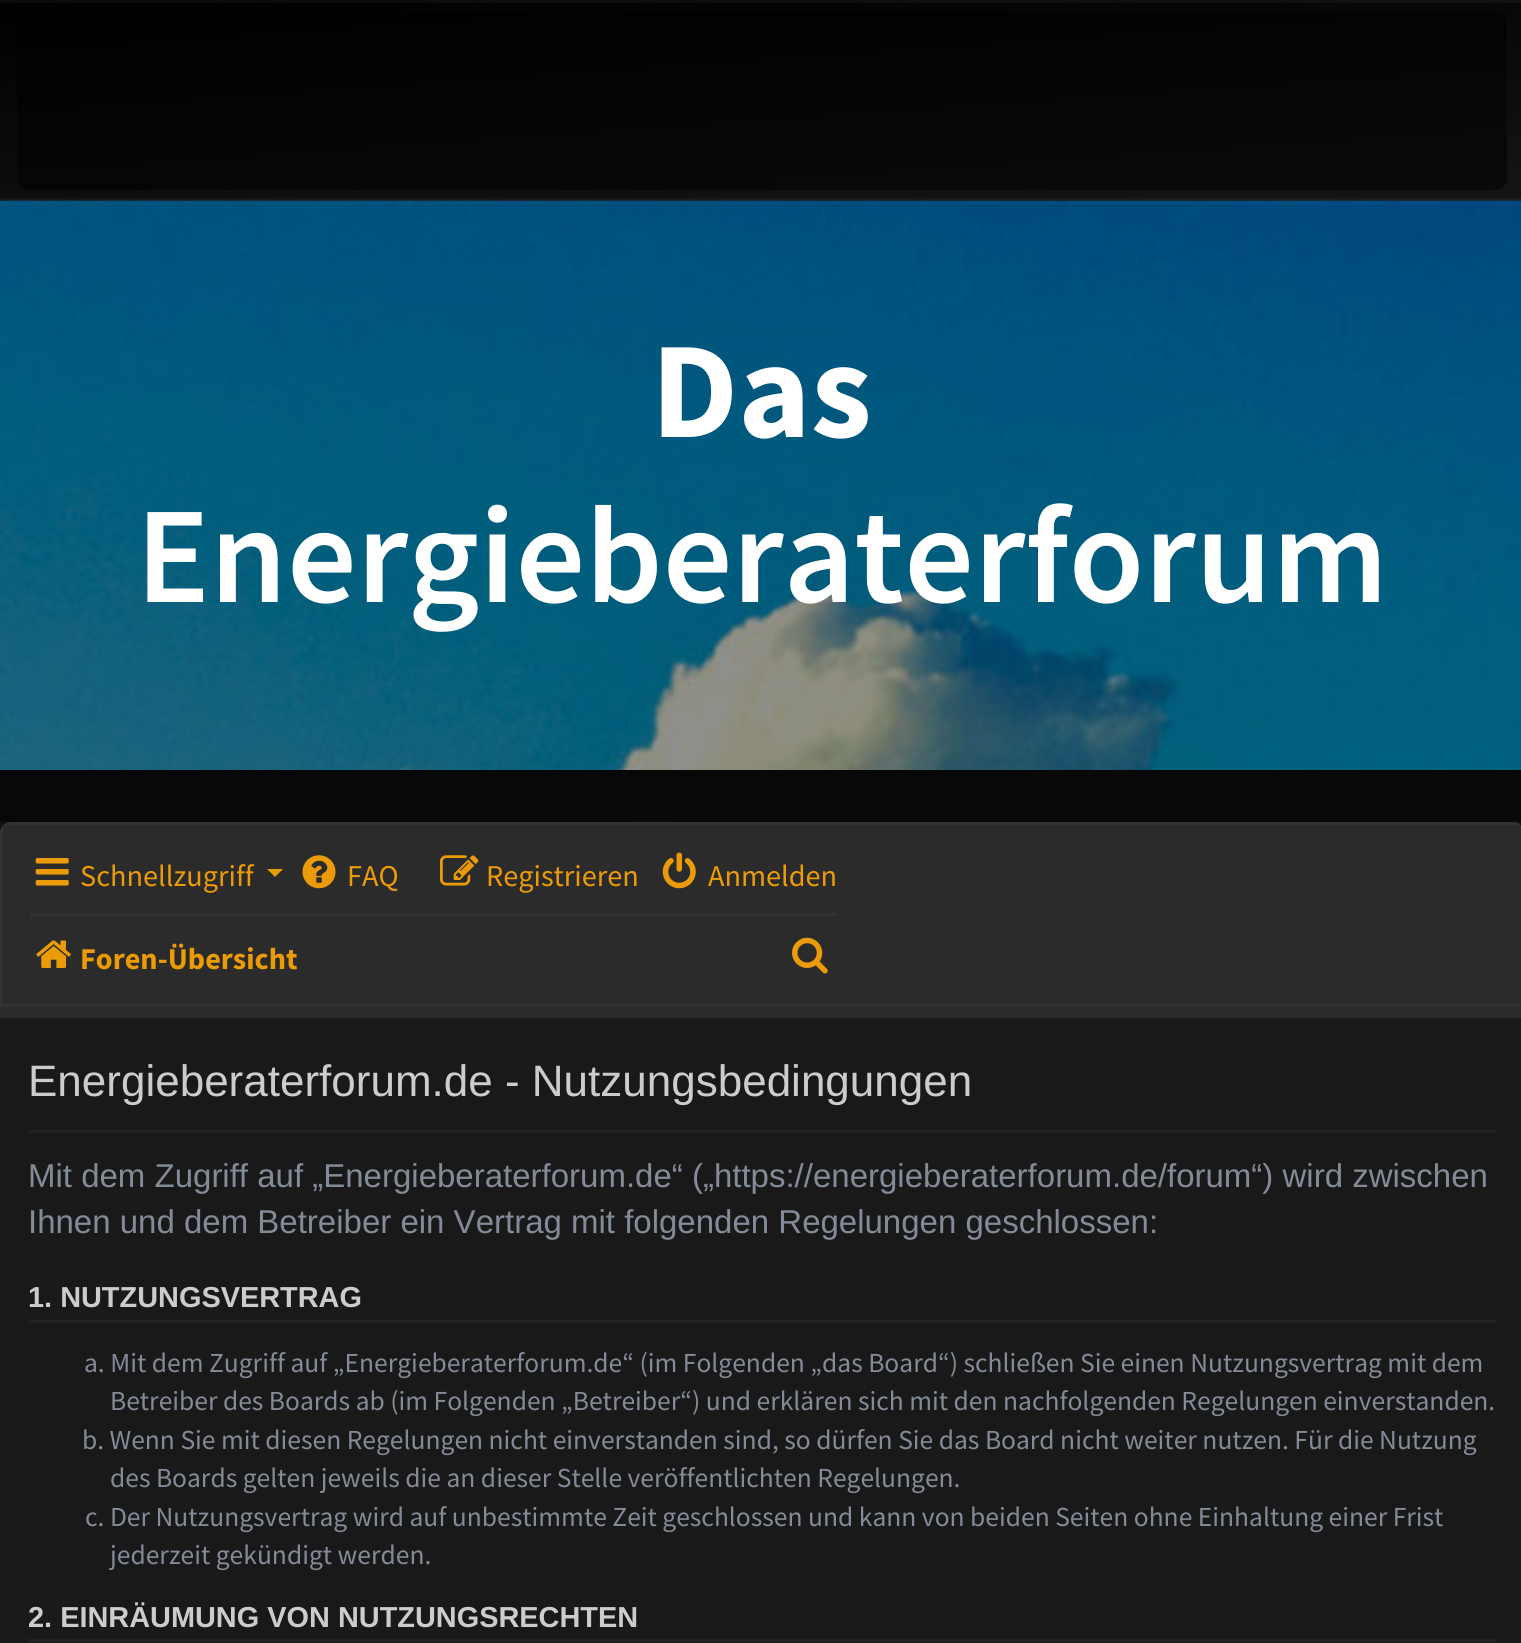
import math
import cairo


def round_path(ctx, x, y, w, h, r):
	ctx.new_sub_path()
	for i, (u, v) in enumerate([(x + w - r, y + h - r), (x + r, y + h - r), (x + r, y + r), (x + w - r, y + r)]):
		ctx.arc(u, v, r, i * math.pi / 2, (i + 1) * math.pi / 2)
	ctx.close_path()

def paste(ctx, path, x, y, w, h):
	ctx.save()
	ctx.set_source_surface(cairo.ImageSurface.create_from_png(path), x, y)
	ctx.rectangle(x, y, w, h)
	ctx.fill()
	ctx.restore()

def draw(ctx):
	ctx.set_source_rgb(1, 1, 1)
	ctx.paint()
	gradient = cairo.LinearGradient(553, -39, 971, 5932)
	gradient.add_color_stop_rgba(0, 0, 0, 0, 1)
	gradient.add_color_stop_rgba(1, 0.231, 0.231, 0.231, 1)
	ctx.set_source(gradient)
	ctx.rectangle(0, 770, 1521, 63)
	ctx.fill()
	gradient = cairo.LinearGradient(731, -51, 792, 821)
	gradient.add_color_stop_rgba(0, 0, 0, 0, 1)
	gradient.add_color_stop_rgba(1, 0.231, 0.231, 0.231, 1)
	ctx.set_source(gradient)
	ctx.rectangle(0, 0, 1521, 201)
	ctx.fill()
	paste(ctx, 'media/1.png', 0, 200, 1521, 570)
	ctx.rectangle(-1.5, 1.5, 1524, 198)
	ctx.set_source_rgba(1, 1, 1, 0.04)
	ctx.set_line_width(3)
	ctx.stroke()
	ctx.set_source_rgba(0, 0, 0, 0.5)
	round_path(ctx, 17, 11, 1490, 179, 11)
	ctx.fill()
	ctx.select_font_face('Source Sans Pro', cairo.FONT_SLANT_NORMAL, cairo.FONT_WEIGHT_BOLD)
	ctx.set_font_size(137.5)
	ctx.set_source_rgb(1, 1, 1)
	ctx.move_to(651, 437)
	ctx.show_text('Das')
	ctx.select_font_face('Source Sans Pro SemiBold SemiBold')
	ctx.move_to(136, 602)
	ctx.show_text('Energieberaterforum')
	ctx.set_source_rgb(0.169, 0.169, 0.169)
	round_path(ctx, 0, 822, 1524, 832, 11)
	ctx.fill()
	ctx.rectangle(1.5, 823.5, 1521, 182)
	ctx.set_source_rgba(1, 1, 1, 0.04)
	ctx.stroke()
	paste(ctx, 'media/2.png', 35, 858, 34, 28)
	ctx.select_font_face('Source Sans Pro')
	ctx.set_font_size(30.25)
	ctx.set_source_rgb(0.918, 0.608, 0.027)
	ctx.move_to(80, 886)
	ctx.show_text('Schnellzugriff')
	ctx.new_path()
	ctx.move_to(267, 869)
	ctx.line_to(283, 869)
	ctx.line_to(275, 877)
	ctx.close_path()
	ctx.fill()
	paste(ctx, 'media/3.png', 302, 855, 34, 34)
	ctx.move_to(347, 886)
	ctx.show_text('FAQ')
	paste(ctx, 'media/4.png', 440, 855, 39, 31)
	ctx.move_to(486, 886)
	ctx.show_text('Registrieren')
	paste(ctx, 'media/5.png', 662, 852, 34, 37)
	ctx.move_to(708, 886)
	ctx.show_text('Anmelden')
	ctx.set_source_rgb(0.2, 0.2, 0.2)
	ctx.rectangle(30, 913, 806, 3)
	ctx.fill()
	paste(ctx, 'media/6.png', 36, 940, 35, 28)
	ctx.select_font_face('Source Sans Pro', cairo.FONT_SLANT_NORMAL, cairo.FONT_WEIGHT_BOLD)
	ctx.set_source_rgb(0.918, 0.608, 0.027)
	ctx.move_to(80, 969)
	ctx.show_text('Foren-Übersicht')
	paste(ctx, 'media/7.png', 792, 937, 36, 37)
	ctx.set_source_rgb(0.098, 0.098, 0.098)
	ctx.rectangle(0, 1018, 1521, 625)
	ctx.fill()
	ctx.set_source_rgb(0.133, 0.133, 0.133)
	ctx.rectangle(28, 1130, 1468, 3)
	ctx.fill()
	ctx.select_font_face('Liberation Sans')
	ctx.set_font_size(44)
	ctx.set_source_rgb(0.8, 0.8, 0.8)
	ctx.move_to(28, 1096)
	ctx.show_text('Energieberaterforum.de - Nutzungsbedingungen')
	ctx.set_font_size(33)
	ctx.set_source_rgb(0.514, 0.545, 0.596)
	ctx.move_to(28, 1187)
	ctx.show_text('Mit dem Zugriff auf „Energieberaterforum.de“ („https://energieberaterforum.de/forum“) wird zwischen')
	ctx.move_to(28, 1233)
	ctx.show_text('Ihnen und dem Betreiber ein Vertrag mit folgenden Regelungen geschlossen:')
	ctx.set_source_rgb(0.133, 0.133, 0.133)
	ctx.rectangle(28, 1320, 1468, 3)
	ctx.fill()
	ctx.select_font_face('Liberation Sans', cairo.FONT_SLANT_NORMAL, cairo.FONT_WEIGHT_BOLD)
	ctx.set_font_size(28.9)
	ctx.set_source_rgb(0.8, 0.8, 0.8)
	ctx.move_to(28, 1307)
	ctx.show_text('1. NUTZUNGSVERTRAG')
	ctx.select_font_face('Source Sans Pro')
	ctx.set_font_size(27.5)
	ctx.set_source_rgb(0.514, 0.545, 0.596)
	for x, y, s in [
		(84, 1372, 'a. Mit dem Zugriff auf „Energieberaterforum.de“ (im Folgenden „das Board“) schließen Sie einen Nutzungsvertrag mit dem'),
		(110, 1410, 'Betreiber des Boards ab (im Folgenden „Betreiber“) und erklären sich mit den nachfolgenden Regelungen einverstanden.'),
		(82, 1449, 'b. Wenn Sie mit diesen Regelungen nicht einverstanden sind, so dürfen Sie das Board nicht weiter nutzen. Für die Nutzung'),
		(110, 1487, 'des Boards gelten jeweils die an dieser Stelle veröffentlichten Regelungen.'),
		(85, 1526, 'c. Der Nutzungsvertrag wird auf unbestimmte Zeit geschlossen und kann von beiden Seiten ohne Einhaltung einer Frist'),
		(110, 1564, 'jederzeit gekündigt werden.'),
	]:
		ctx.move_to(x, y)
		ctx.show_text(s)
	ctx.set_source_rgb(0.133, 0.133, 0.133)
	ctx.rectangle(28, 1639, 1468, 3)
	ctx.fill()
	ctx.select_font_face('Liberation Sans', cairo.FONT_SLANT_NORMAL, cairo.FONT_WEIGHT_BOLD)
	ctx.set_font_size(28.9)
	ctx.set_source_rgb(0.8, 0.8, 0.8)
	ctx.move_to(28, 1627)
	ctx.show_text('2. EINRÄUMUNG VON NUTZUNGSRECHTEN')


surface = cairo.ImageSurface(cairo.FORMAT_RGB24, 1521, 1643)
ctx = cairo.Context(surface)
options = cairo.FontOptions()
options.set_hint_metrics(cairo.HINT_METRICS_OFF)
options.set_hint_style(cairo.HINT_STYLE_NONE)
ctx.set_font_options(options)
ctx.set_miter_limit(4)
draw(ctx)
surface.write_to_png('image.png')
